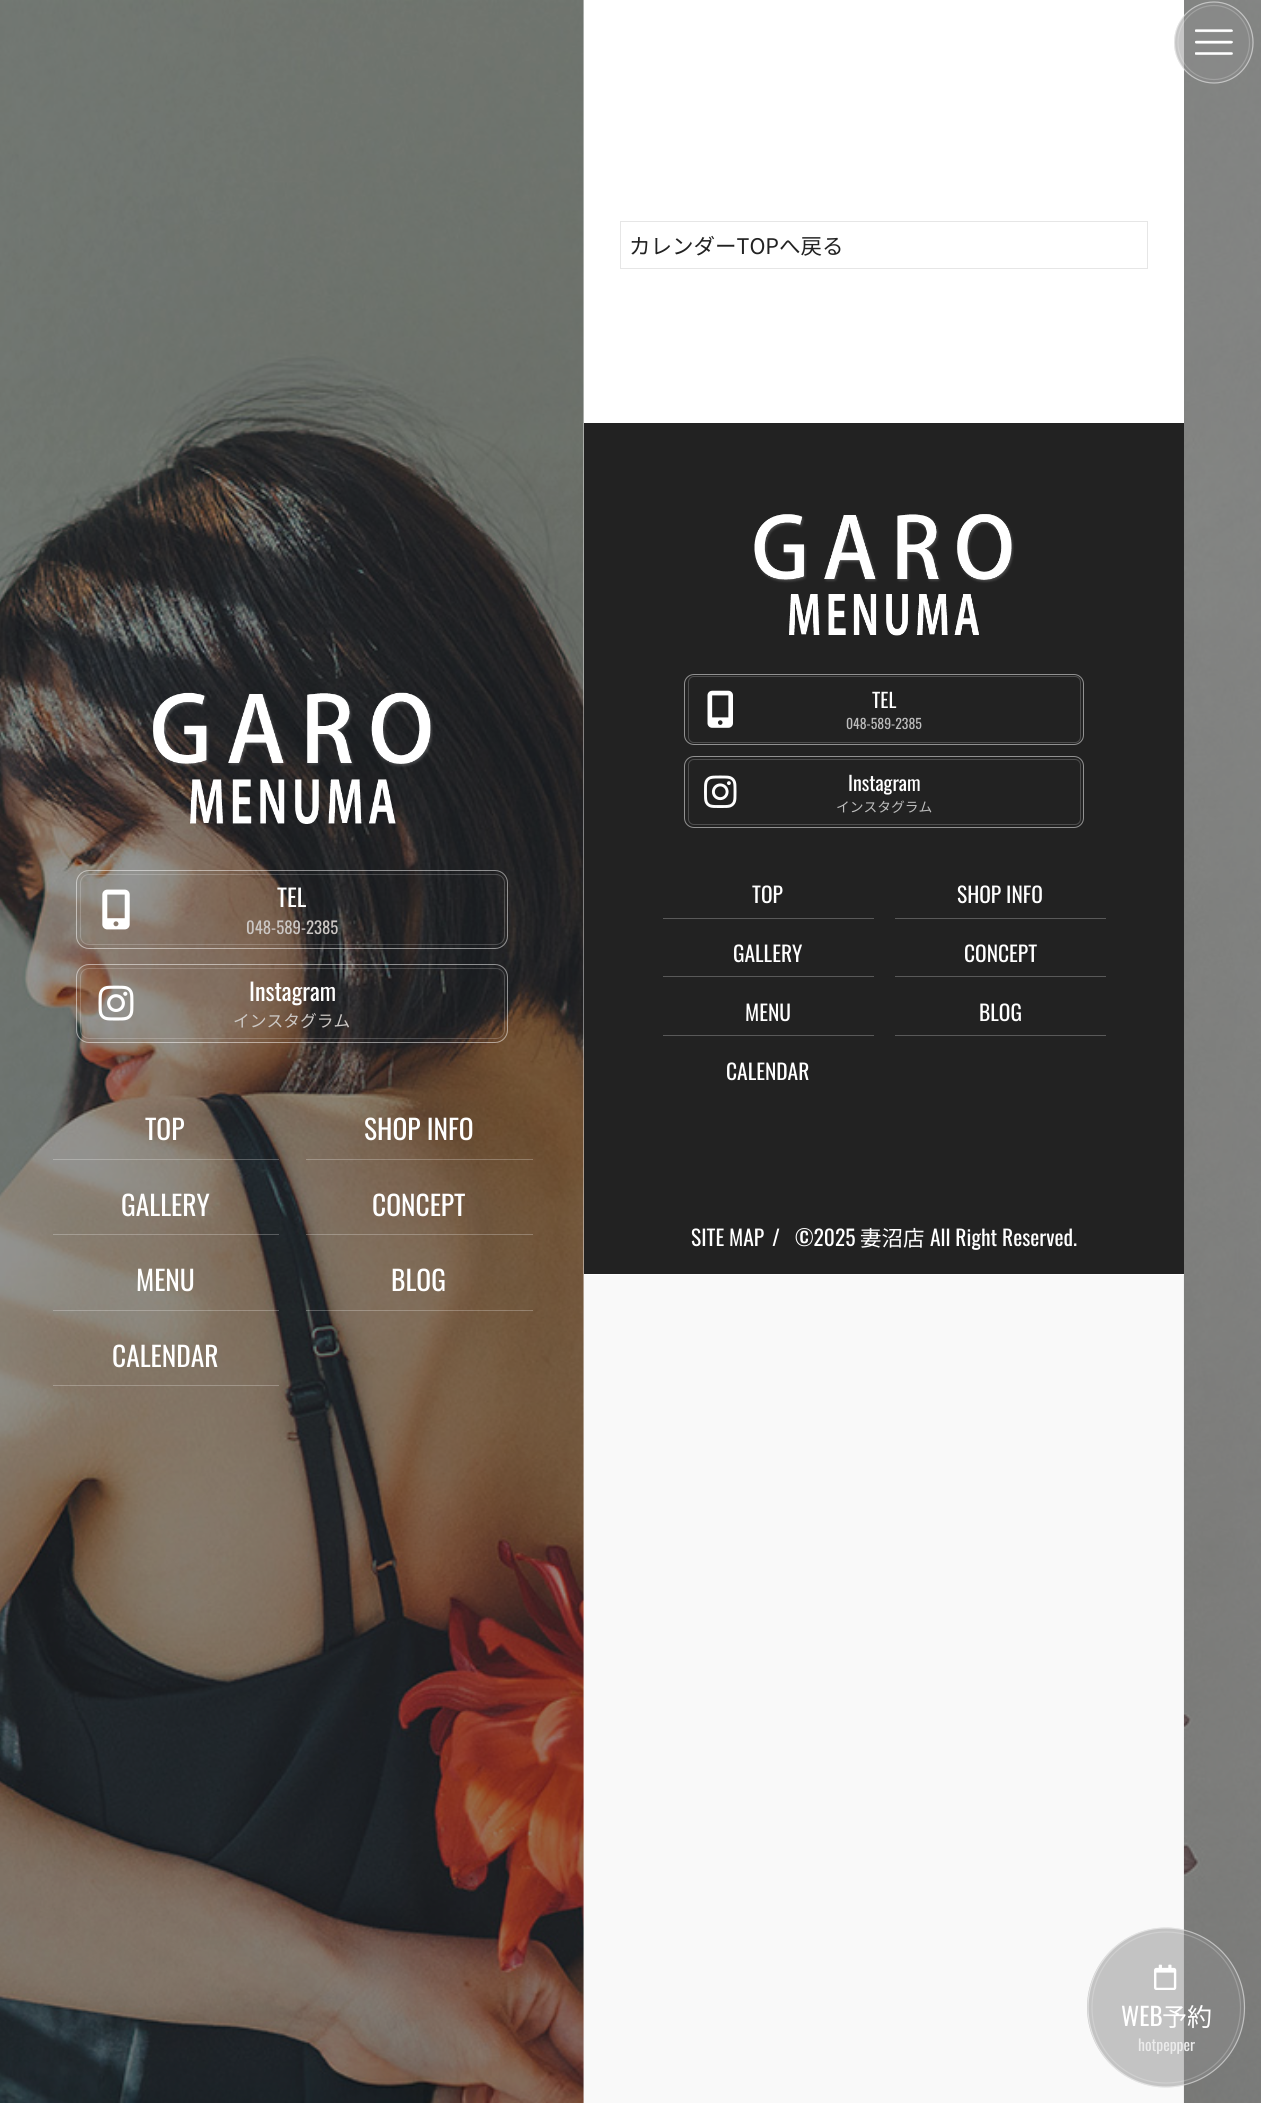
import math
import cairo


def round_path(ctx, x, y, w, h, r):
	ctx.new_sub_path()
	for i, (u, v) in enumerate([(x + w - r, y + h - r), (x + r, y + h - r), (x + r, y + r), (x + w - r, y + r)]):
		ctx.arc(u, v, r, i * math.pi / 2, (i + 1) * math.pi / 2)
	ctx.close_path()

def paste(ctx, path, x, y, w, h):
	ctx.save()
	ctx.set_source_surface(cairo.ImageSurface.create_from_png(path), x, y)
	ctx.rectangle(x, y, w, h)
	ctx.fill()
	ctx.restore()

def draw(ctx):
	ctx.set_source_rgb(0.976, 0.976, 0.976)
	ctx.paint()
	paste(ctx, 'media/9.png', 1183, 0, 78, 2103)
	ctx.set_source_rgb(1, 1, 1)
	ctx.rectangle(584, 0, 600, 1275)
	ctx.fill()
	ctx.set_source_rgba(0.561, 0.561, 0.561, 0.5)
	ctx.new_path()
	ctx.move_to(1214, 1.5)
	ctx.curve_to(1236, 1.5, 1254, 20, 1254, 42.5)
	ctx.curve_to(1254, 65, 1236, 83.5, 1214, 83.5)
	ctx.curve_to(1192, 83.5, 1174, 65, 1174, 42.5)
	ctx.curve_to(1174, 20, 1192, 1.5, 1214, 1.5)
	ctx.close_path()
	ctx.fill()
	ctx.new_path()
	ctx.move_to(1214, 2)
	ctx.curve_to(1235.5, 2, 1253, 20, 1253, 42.5)
	ctx.curve_to(1253, 65, 1235.5, 83, 1214, 83)
	ctx.curve_to(1192, 83, 1174.5, 65, 1174.5, 42.5)
	ctx.curve_to(1174.5, 20, 1192, 2, 1214, 2)
	ctx.close_path()
	ctx.set_source_rgba(1, 1, 1, 0.5)
	ctx.set_line_width(1.2)
	ctx.stroke()
	ctx.new_path()
	ctx.move_to(1214, 5.5)
	ctx.curve_to(1233.5, 5.5, 1249.5, 22, 1249.5, 42.5)
	ctx.curve_to(1249.5, 63, 1233.5, 79.5, 1214, 79.5)
	ctx.curve_to(1194, 79.5, 1178, 63, 1178, 42.5)
	ctx.curve_to(1178, 22, 1194, 5.5, 1214, 5.5)
	ctx.close_path()
	ctx.set_source_rgba(1, 1, 1, 0.2)
	ctx.stroke()
	paste(ctx, 'media/1.png', 1195, 29, 38, 26)
	paste(ctx, 'media/2.png', 0, 0, 584, 2103)
	paste(ctx, 'media/3.png', 153, 692, 280, 132)
	round_path(ctx, 76.5, 870.5, 431, 78, 12.5)
	ctx.set_source_rgba(1, 1, 1, 0.5)
	ctx.set_line_width(1)
	ctx.stroke()
	round_path(ctx, 80.5, 874.5, 424, 70, 8.5)
	ctx.set_source_rgba(1, 1, 1, 0.2)
	ctx.stroke()
	paste(ctx, 'media/4.png', 102, 889, 28, 41)
	ctx.select_font_face('Oswald')
	ctx.set_font_size(24)
	ctx.set_source_rgb(1, 1, 1)
	ctx.move_to(277, 907)
	ctx.show_text('TEL')
	ctx.set_font_size(16.75)
	ctx.set_source_rgb(0.796, 0.78, 0.769)
	ctx.move_to(246, 934)
	ctx.show_text('048-589-2385')
	round_path(ctx, 76.5, 964.5, 431, 78, 12.5)
	ctx.set_source_rgba(1, 1, 1, 0.5)
	ctx.stroke()
	round_path(ctx, 80.5, 968.5, 424, 70, 8.5)
	ctx.set_source_rgba(1, 1, 1, 0.2)
	ctx.stroke()
	paste(ctx, 'media/5.png', 98, 985, 36, 36)
	ctx.set_font_size(24)
	ctx.set_source_rgb(1, 1, 1)
	ctx.move_to(249, 1001)
	ctx.show_text('Instagram')
	ctx.select_font_face('Noto Sans JP Thin')
	ctx.set_font_size(16.75)
	ctx.set_source_rgb(0.796, 0.78, 0.769)
	ctx.move_to(233, 1027)
	ctx.show_text('インスタグラム')
	ctx.set_source_rgba(1, 1, 1, 0.25)
	ctx.rectangle(53, 1159, 226, 1)
	ctx.fill()
	ctx.select_font_face('Oswald')
	ctx.set_font_size(27.5)
	ctx.set_source_rgb(1, 1, 1)
	ctx.move_to(145, 1140)
	ctx.show_text('TOP')
	ctx.set_source_rgba(1, 1, 1, 0.25)
	ctx.rectangle(306, 1159, 227, 1)
	ctx.fill()
	ctx.set_source_rgb(1, 1, 1)
	ctx.move_to(364, 1140)
	ctx.show_text('SHOP INFO')
	ctx.set_source_rgba(1, 1, 1, 0.25)
	ctx.rectangle(53, 1234, 226, 1)
	ctx.fill()
	ctx.set_source_rgb(1, 1, 1)
	ctx.move_to(121, 1216)
	ctx.show_text('GALLERY')
	ctx.set_source_rgba(1, 1, 1, 0.25)
	ctx.rectangle(306, 1234, 227, 1)
	ctx.fill()
	ctx.set_source_rgb(1, 1, 1)
	ctx.move_to(372, 1216)
	ctx.show_text('CONCEPT')
	ctx.set_source_rgba(1, 1, 1, 0.25)
	ctx.rectangle(53, 1310, 226, 1)
	ctx.fill()
	ctx.set_source_rgb(1, 1, 1)
	ctx.move_to(136, 1291)
	ctx.show_text('MENU')
	ctx.set_source_rgba(1, 1, 1, 0.25)
	ctx.rectangle(306, 1310, 227, 1)
	ctx.fill()
	ctx.set_source_rgb(1, 1, 1)
	ctx.move_to(391, 1291)
	ctx.show_text('BLOG')
	ctx.set_source_rgba(1, 1, 1, 0.25)
	ctx.rectangle(53, 1385, 226, 1)
	ctx.fill()
	ctx.set_source_rgb(1, 1, 1)
	ctx.move_to(112, 1367)
	ctx.show_text('CALENDAR')
	ctx.rectangle(620.5, 221.5, 527, 47)
	ctx.set_source_rgb(0.902, 0.902, 0.902)
	ctx.stroke()
	ctx.select_font_face('Noto Sans JP Thin')
	ctx.set_font_size(21.5)
	ctx.set_source_rgb(0.133, 0.133, 0.133)
	ctx.move_to(629, 254)
	ctx.show_text('カレンダーTOPへ戻る')
	ctx.rectangle(584, 423, 600, 851)
	ctx.fill()
	paste(ctx, 'media/6.png', 754, 514, 260, 122)
	round_path(ctx, 684.5, 674.5, 399, 70, 9.5)
	ctx.set_source_rgb(0.569, 0.569, 0.569)
	ctx.stroke()
	round_path(ctx, 688.5, 676.5, 392, 66, 5.5)
	ctx.set_source_rgb(0.306, 0.306, 0.306)
	ctx.stroke()
	paste(ctx, 'media/7.png', 707, 690, 26, 38)
	ctx.select_font_face('Oswald')
	ctx.set_font_size(20)
	ctx.set_source_rgb(1, 1, 1)
	ctx.move_to(872, 708)
	ctx.show_text('TEL')
	ctx.set_font_size(13.75)
	ctx.set_source_rgb(0.741, 0.741, 0.741)
	ctx.move_to(846, 729)
	ctx.show_text('048-589-2385')
	round_path(ctx, 684.5, 756.5, 399, 71, 9.5)
	ctx.set_source_rgb(0.569, 0.569, 0.569)
	ctx.stroke()
	round_path(ctx, 688.5, 759.5, 392, 65, 5.5)
	ctx.set_source_rgb(0.306, 0.306, 0.306)
	ctx.stroke()
	paste(ctx, 'media/8.png', 704, 775, 33, 33)
	ctx.set_font_size(20)
	ctx.set_source_rgb(1, 1, 1)
	ctx.move_to(848, 791)
	ctx.show_text('Instagram')
	ctx.select_font_face('Noto Sans JP Thin')
	ctx.set_font_size(13.75)
	ctx.set_source_rgb(0.741, 0.741, 0.741)
	ctx.move_to(836, 812)
	ctx.show_text('インスタグラム')
	ctx.set_source_rgb(0.349, 0.349, 0.349)
	ctx.rectangle(663, 918, 211, 1)
	ctx.fill()
	ctx.select_font_face('Oswald')
	ctx.set_font_size(21.5)
	ctx.set_source_rgb(1, 1, 1)
	ctx.move_to(752, 903)
	ctx.show_text('TOP')
	ctx.set_source_rgb(0.349, 0.349, 0.349)
	ctx.rectangle(895, 918, 211, 1)
	ctx.fill()
	ctx.set_source_rgb(1, 1, 1)
	ctx.move_to(957, 903)
	ctx.show_text('SHOP INFO')
	ctx.set_source_rgb(0.349, 0.349, 0.349)
	ctx.rectangle(663, 976, 211, 1)
	ctx.fill()
	ctx.set_source_rgb(1, 1, 1)
	ctx.move_to(733, 962)
	ctx.show_text('GALLERY')
	ctx.set_source_rgb(0.349, 0.349, 0.349)
	ctx.rectangle(895, 976, 211, 1)
	ctx.fill()
	ctx.set_source_rgb(1, 1, 1)
	ctx.move_to(964, 962)
	ctx.show_text('CONCEPT')
	ctx.set_source_rgb(0.349, 0.349, 0.349)
	ctx.rectangle(663, 1035, 211, 1)
	ctx.fill()
	ctx.set_source_rgb(1, 1, 1)
	ctx.move_to(745, 1021)
	ctx.show_text('MENU')
	ctx.set_source_rgb(0.349, 0.349, 0.349)
	ctx.rectangle(895, 1035, 211, 1)
	ctx.fill()
	ctx.set_source_rgb(1, 1, 1)
	for x, y, s in [
		(979, 1021, 'BLOG'),
		(726, 1080, 'CALENDAR'),
		(691, 1246, 'SITE MAP'),
		(772, 1246, '/'),
		(795, 1246, '©2025'),
	]:
		ctx.move_to(x, y)
		ctx.show_text(s)
	ctx.select_font_face('Noto Sans JP Thin')
	ctx.move_to(860, 1246)
	ctx.show_text('妻沼店')
	ctx.select_font_face('Oswald')
	ctx.move_to(930, 1246)
	ctx.show_text('All Right Reserved.')
	ctx.set_source_rgba(0.561, 0.561, 0.561, 0.5)
	ctx.new_path()
	ctx.move_to(1166, 1927.5)
	ctx.curve_to(1209.5, 1927.5, 1245, 1963.5, 1245, 2007.5)
	ctx.curve_to(1245, 2051.5, 1209.5, 2087.5, 1166, 2087.5)
	ctx.curve_to(1122.5, 2087.5, 1087, 2051.5, 1087, 2007.5)
	ctx.curve_to(1087, 1963.5, 1122.5, 1927.5, 1166, 1927.5)
	ctx.close_path()
	ctx.fill()
	ctx.new_path()
	ctx.move_to(1166, 1928)
	ctx.curve_to(1209.5, 1928, 1244.5, 1963.5, 1244.5, 2007.5)
	ctx.curve_to(1244.5, 2051.5, 1209.5, 2087, 1166, 2087)
	ctx.curve_to(1123, 2087, 1088, 2051.5, 1088, 2007.5)
	ctx.curve_to(1088, 1963.5, 1123, 1928, 1166, 1928)
	ctx.close_path()
	ctx.set_source_rgba(1, 1, 1, 0.5)
	ctx.set_line_width(1.2)
	ctx.stroke()
	ctx.new_path()
	ctx.move_to(1166, 1932)
	ctx.curve_to(1207.5, 1932, 1240.5, 1965.5, 1240.5, 2007.5)
	ctx.curve_to(1240.5, 2049.5, 1207.5, 2083, 1166, 2083)
	ctx.curve_to(1125, 2083, 1092, 2049.5, 1092, 2007.5)
	ctx.curve_to(1092, 1965.5, 1125, 1932, 1166, 1932)
	ctx.close_path()
	ctx.set_source_rgba(1, 1, 1, 0.2)
	ctx.stroke()
	paste(ctx, 'media/10.png', 1154, 1964, 23, 26)
	ctx.set_font_size(25)
	ctx.set_source_rgb(1, 1, 1)
	ctx.move_to(1121, 2026)
	ctx.show_text('WEB')
	ctx.select_font_face('Noto Sans JP Thin')
	ctx.move_to(1162, 2026)
	ctx.show_text('予約')
	ctx.select_font_face('Oswald')
	ctx.set_font_size(15.5)
	ctx.set_source_rgb(0.918, 0.918, 0.918)
	ctx.move_to(1138, 2051)
	ctx.show_text('hotpepper')


surface = cairo.ImageSurface(cairo.FORMAT_RGB24, 1261, 2103)
ctx = cairo.Context(surface)
options = cairo.FontOptions()
options.set_hint_metrics(cairo.HINT_METRICS_OFF)
options.set_hint_style(cairo.HINT_STYLE_NONE)
ctx.set_font_options(options)
ctx.set_miter_limit(4)
draw(ctx)
surface.write_to_png('image.png')
